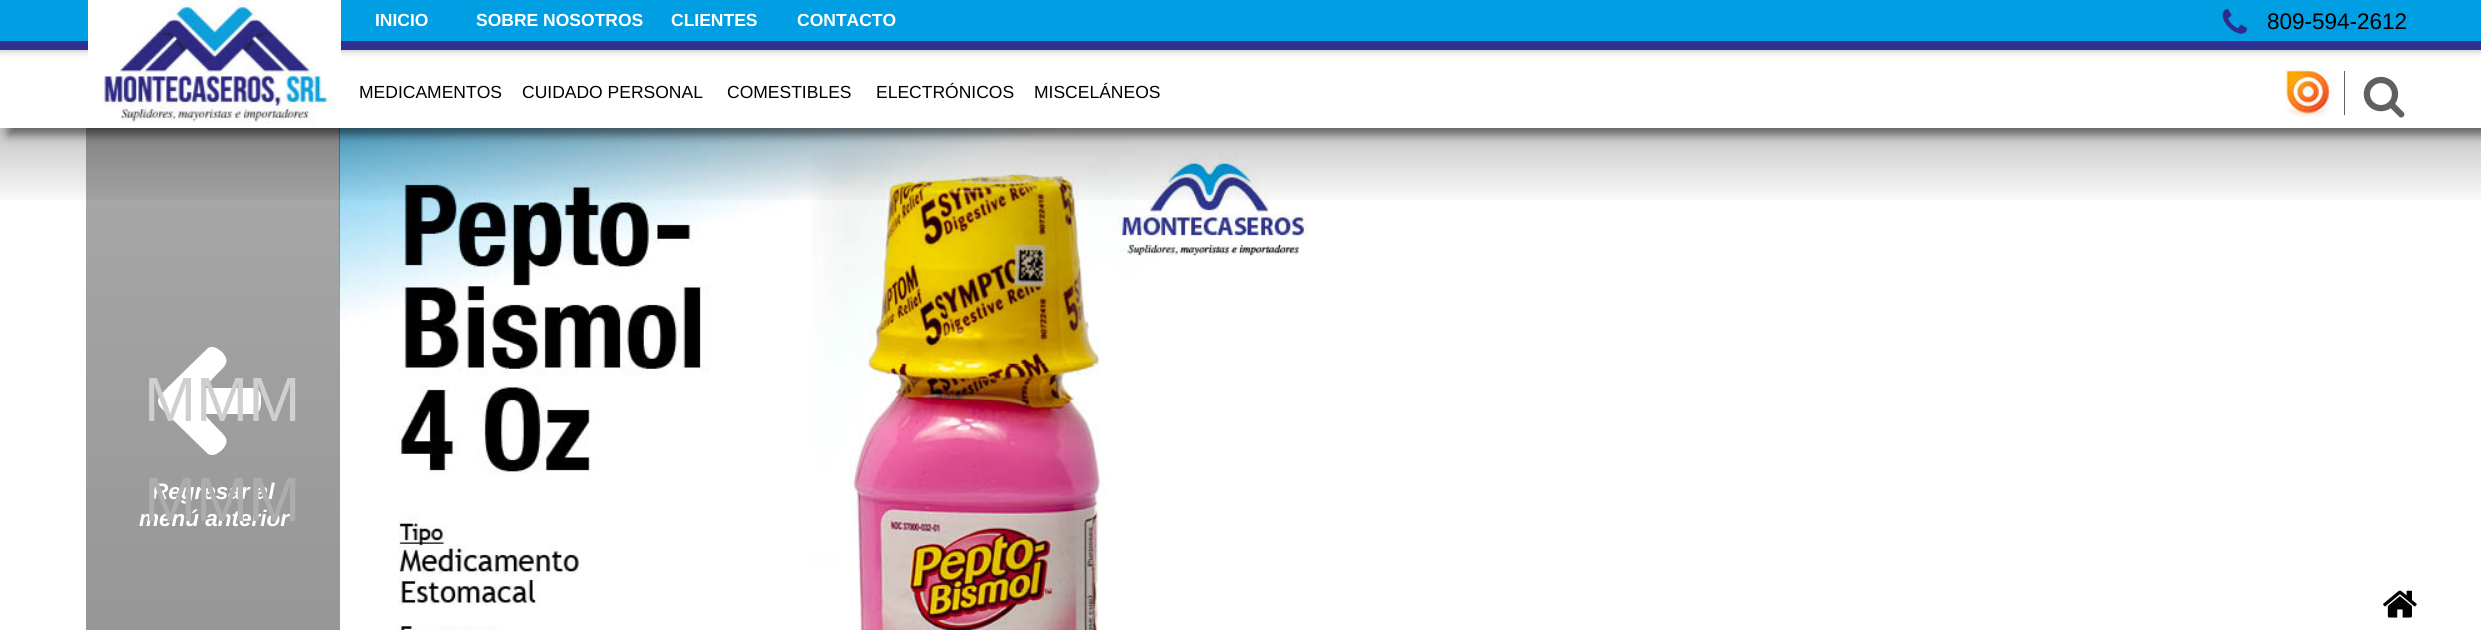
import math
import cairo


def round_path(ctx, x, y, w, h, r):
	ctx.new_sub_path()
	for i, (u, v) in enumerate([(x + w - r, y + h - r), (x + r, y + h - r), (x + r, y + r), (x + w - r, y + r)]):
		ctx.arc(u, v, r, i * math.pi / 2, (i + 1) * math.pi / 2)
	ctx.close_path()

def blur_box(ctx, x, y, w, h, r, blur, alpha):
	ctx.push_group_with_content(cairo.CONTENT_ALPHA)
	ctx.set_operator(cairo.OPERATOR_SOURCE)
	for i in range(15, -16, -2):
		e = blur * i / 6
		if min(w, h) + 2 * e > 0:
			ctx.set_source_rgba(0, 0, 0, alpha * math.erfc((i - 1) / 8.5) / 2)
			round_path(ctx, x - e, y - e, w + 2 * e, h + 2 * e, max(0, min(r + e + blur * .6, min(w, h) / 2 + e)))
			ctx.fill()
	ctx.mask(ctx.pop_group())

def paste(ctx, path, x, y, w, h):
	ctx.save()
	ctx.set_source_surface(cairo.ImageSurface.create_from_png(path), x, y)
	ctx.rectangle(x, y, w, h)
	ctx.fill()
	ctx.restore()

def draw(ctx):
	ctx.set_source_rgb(1, 1, 1)
	ctx.paint()
	paste(ctx, 'media/6.png', 338, 128, 971, 502)
	gradient = cairo.LinearGradient(1241, 122, 1241, 208)
	gradient.add_color_stop_rgba(0.06, 0, 0, 0, 0.23)
	gradient.add_color_stop_rgba(1, 0, 0, 0, 0)
	ctx.set_source(gradient)
	ctx.rectangle(0, 128, 2481, 72)
	ctx.fill()
	ctx.set_source_rgb(0, 0, 0)
	blur_box(ctx, 8, 8, 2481, 127, 0, 5, 0.5)
	ctx.set_source_rgb(1, 1, 1)
	ctx.rectangle(0, 50, 2481, 78)
	ctx.fill()
	ctx.set_source_rgb(0, 0, 0)
	blur_box(ctx, 0, 6, 2481, 43, 0, 4.5, 0.4)
	ctx.set_source_rgb(0, 0.62, 0.89)
	ctx.rectangle(0, 0, 2481, 41)
	ctx.fill()
	ctx.set_source_rgb(0.18, 0.192, 0.573)
	ctx.rectangle(0, 41, 2481, 9)
	ctx.fill()
	ctx.set_source_rgb(1, 1, 1)
	ctx.rectangle(88, 0, 253, 58)
	ctx.fill()
	paste(ctx, 'media/1.png', 102, 0, 232, 124)
	ctx.select_font_face('Liberation Sans', cairo.FONT_SLANT_NORMAL, cairo.FONT_WEIGHT_BOLD)
	ctx.set_font_size(17.5)
	for x, y, s in [
		(375, 26, 'INICIO'),
		(476, 26, 'SOBRE NOSOTROS'),
		(671, 26, 'CLIENTES'),
		(797, 26, 'CONTACTO'),
	]:
		ctx.move_to(x, y)
		ctx.show_text(s)
	paste(ctx, 'media/2.png', 2222, 9, 25, 25)
	ctx.select_font_face('Liberation Sans')
	ctx.set_font_size(22.5)
	ctx.set_source_rgb(0, 0, 0)
	ctx.move_to(2267, 29)
	ctx.show_text('809-594-2612')
	ctx.set_font_size(17.5)
	for x, y, s in [
		(359, 98, 'MEDICAMENTOS'),
		(522, 98, 'CUIDADO PERSONAL'),
		(727, 98, 'COMESTIBLES'),
		(876, 98, 'ELECTRÓNICOS'),
		(1034, 98, 'MISCELÁNEOS'),
	]:
		ctx.move_to(x, y)
		ctx.show_text(s)
	paste(ctx, 'media/3.png', 2285, 67, 49, 51)
	ctx.set_source_rgb(0.376, 0.376, 0.376)
	ctx.rectangle(2344, 71, 1, 44)
	ctx.fill()
	paste(ctx, 'media/4.png', 2363, 76, 42, 42)
	gradient = cairo.LinearGradient(213, 128, 213, 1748)
	gradient.add_color_stop_rgba(0, 0, 0, 0, 0.34)
	gradient.add_color_stop_rgba(0.44, 0, 0, 0, 0.44)
	ctx.set_source(gradient)
	ctx.rectangle(86, 128, 254, 502)
	ctx.fill()
	ctx.set_source_rgb(1, 1, 1)
	ctx.new_path()
	ctx.move_to(261, 397)
	ctx.curve_to(261, 403, 262, 413, 254, 414)
	ctx.line_to(204, 414)
	ctx.line_to(217, 428)
	ctx.curve_to(225, 436, 231, 440, 222, 450)
	ctx.curve_to(218, 453, 214, 457, 208, 454)
	ctx.line_to(168, 415)
	ctx.curve_to(165, 411, 158, 407, 158, 401)
	ctx.curve_to(158, 395, 165, 391, 168, 387)
	ctx.line_to(208, 348)
	ctx.curve_to(214, 345, 218, 349, 222, 352)
	ctx.curve_to(231, 362, 225, 366, 217, 374)
	ctx.line_to(204, 388)
	ctx.line_to(245, 388)
	ctx.curve_to(252, 388, 261, 387, 261, 397)
	ctx.close_path()
	ctx.fill()
	ctx.set_font_size(62.5)
	ctx.set_source_rgb(0.812, 0.812, 0.812)
	ctx.move_to(144, 421)
	ctx.show_text('MMM')
	ctx.select_font_face('Liberation Sans', cairo.FONT_SLANT_ITALIC, cairo.FONT_WEIGHT_BOLD)
	ctx.set_font_size(22.5)
	ctx.set_source_rgb(1, 1, 1)
	ctx.move_to(152, 499)
	ctx.show_text('Regresar al')
	ctx.move_to(139, 526)
	ctx.show_text('menú anterior')
	ctx.select_font_face('Liberation Sans')
	ctx.set_font_size(62.5)
	ctx.set_source_rgb(0.678, 0.678, 0.678)
	ctx.move_to(144, 521)
	ctx.show_text('MMM')
	paste(ctx, 'media/5.png', 2383, 590, 34, 28)


surface = cairo.ImageSurface(cairo.FORMAT_RGB24, 2481, 630)
ctx = cairo.Context(surface)
options = cairo.FontOptions()
options.set_hint_metrics(cairo.HINT_METRICS_OFF)
options.set_hint_style(cairo.HINT_STYLE_NONE)
ctx.set_font_options(options)
ctx.set_miter_limit(4)
draw(ctx)
surface.write_to_png('image.png')
